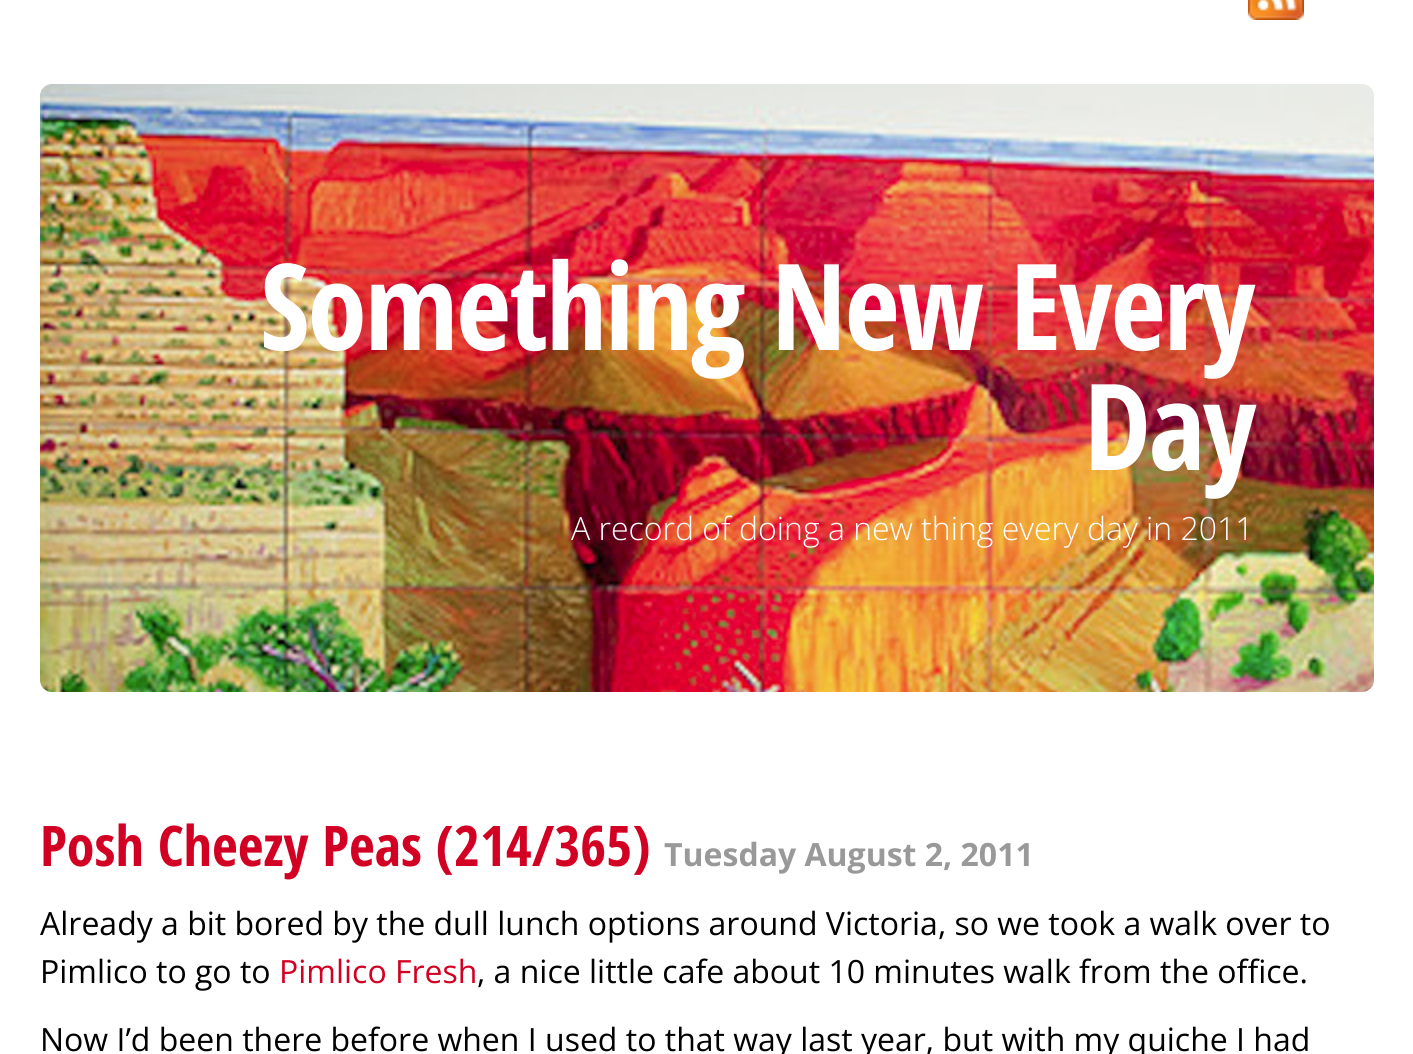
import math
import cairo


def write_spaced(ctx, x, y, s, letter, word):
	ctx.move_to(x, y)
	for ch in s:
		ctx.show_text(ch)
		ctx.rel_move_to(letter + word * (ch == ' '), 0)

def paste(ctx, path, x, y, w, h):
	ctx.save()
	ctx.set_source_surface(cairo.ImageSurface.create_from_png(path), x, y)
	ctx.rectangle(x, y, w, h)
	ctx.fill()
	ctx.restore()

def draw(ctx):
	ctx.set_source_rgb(1, 1, 1)
	ctx.paint()
	paste(ctx, 'media/1.png', 1248, 0, 56, 20)
	paste(ctx, 'media/2.png', 40, 84, 1334, 608)
	ctx.select_font_face('Open Sans Condensed', cairo.FONT_SLANT_NORMAL, cairo.FONT_WEIGHT_BOLD)
	ctx.set_font_size(120)
	ctx.set_source_rgb(1, 1, 1)
	write_spaced(ctx, 260, 350, 'Something New Every', -2, 0)
	write_spaced(ctx, 1084, 470, 'Day', -2, 0)
	ctx.select_font_face('Open Sans Light')
	ctx.set_font_size(32)
	ctx.move_to(571, 540)
	ctx.show_text('A record of doing a new thing every day in 2011')
	ctx.select_font_face('Open Sans Condensed', cairo.FONT_SLANT_NORMAL, cairo.FONT_WEIGHT_BOLD)
	ctx.set_font_size(56)
	ctx.set_source_rgb(0.824, 0, 0.133)
	ctx.move_to(40, 866)
	ctx.show_text('Posh Cheezy Peas (214/365)')
	ctx.select_font_face('Open Sans', cairo.FONT_SLANT_NORMAL, cairo.FONT_WEIGHT_BOLD)
	ctx.set_font_size(32)
	ctx.set_source_rgb(0.6, 0.6, 0.6)
	ctx.move_to(664, 866)
	ctx.show_text('Tuesday August 2, 2011')
	ctx.select_font_face('Open Sans')
	ctx.set_source_rgb(0, 0, 0)
	ctx.move_to(40, 935)
	ctx.show_text('Already a bit bored by the dull lunch options around Victoria, so we took a walk over to')
	ctx.move_to(40, 983)
	ctx.show_text('Pimlico to go to')
	ctx.set_source_rgb(0.824, 0, 0.133)
	ctx.move_to(279, 983)
	ctx.show_text('Pimlico Fresh')
	ctx.set_source_rgb(0, 0, 0)
	ctx.move_to(477, 983)
	ctx.show_text(', a nice little cafe about 10 minutes walk from the office.')
	ctx.move_to(40, 1051)
	ctx.show_text('Now I’d been there before when I used to that way last year, but with my quiche I had')


surface = cairo.ImageSurface(cairo.FORMAT_RGB24, 1413, 1054)
ctx = cairo.Context(surface)
options = cairo.FontOptions()
options.set_hint_metrics(cairo.HINT_METRICS_OFF)
options.set_hint_style(cairo.HINT_STYLE_NONE)
ctx.set_font_options(options)
ctx.set_miter_limit(4)
draw(ctx)
surface.write_to_png('image.png')
